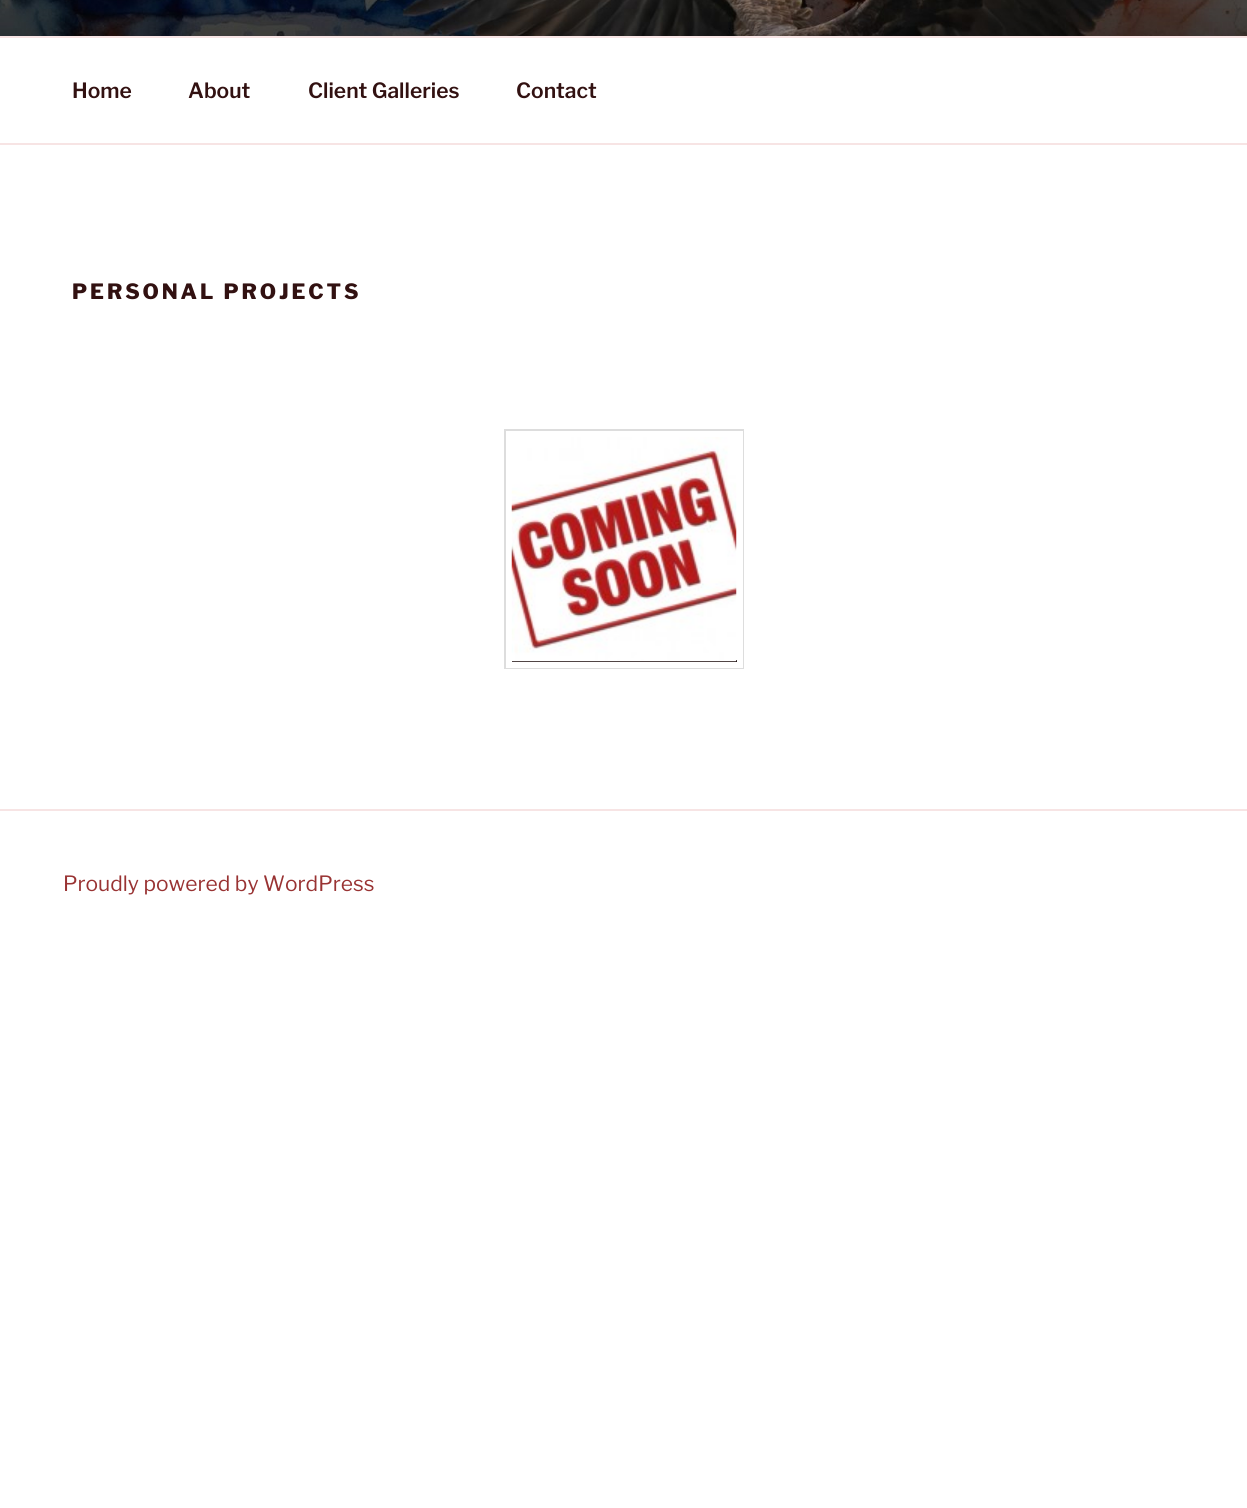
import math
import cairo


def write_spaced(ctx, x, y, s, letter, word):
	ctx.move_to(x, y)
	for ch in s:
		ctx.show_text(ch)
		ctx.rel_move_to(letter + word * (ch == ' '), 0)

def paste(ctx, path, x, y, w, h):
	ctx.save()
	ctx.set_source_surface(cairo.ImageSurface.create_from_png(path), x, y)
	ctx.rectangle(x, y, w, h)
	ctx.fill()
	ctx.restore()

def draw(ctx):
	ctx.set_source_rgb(1, 1, 1)
	ctx.paint()
	paste(ctx, 'media/1.png', 0, 0, 1247, 36)
	gradient = cairo.LinearGradient(624, 0, 624, 144)
	gradient.add_color_stop_rgba(0, 0, 0, 0, 0)
	gradient.add_color_stop_rgba(0.75, 0, 0, 0, 0.3)
	gradient.add_color_stop_rgba(1, 0, 0, 0, 0.3)
	ctx.set_source(gradient)
	ctx.rectangle(0, 8, 1247, 28)
	ctx.fill()
	ctx.set_source_rgb(0.965, 0.894, 0.894)
	ctx.rectangle(0, 36, 1247, 2)
	ctx.fill()
	ctx.rectangle(0, 143, 1247, 2)
	ctx.fill()
	ctx.select_font_face('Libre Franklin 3 Thin')
	ctx.set_font_size(21)
	ctx.set_source_rgb(0.196, 0.067, 0.067)
	for x, y, s in [
		(72, 98, 'Home'),
		(188, 98, 'About'),
		(308, 98, 'Client Galleries'),
		(516, 98, 'Contact'),
	]:
		ctx.move_to(x, y)
		ctx.show_text(s)
	ctx.select_font_face('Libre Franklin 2 Thin')
	write_spaced(ctx, 72, 299, 'PERSONAL PROJECTS', 2.9, 0)
	ctx.rectangle(505, 430, 238, 238)
	ctx.set_source_rgb(0.867, 0.867, 0.867)
	ctx.stroke()
	ctx.set_source_rgb(1, 1, 1)
	ctx.rectangle(506, 431, 237, 237)
	ctx.fill()
	ctx.set_source_rgb(0.09, 0.031, 0.031)
	ctx.rectangle(512, 660, 225, 2)
	ctx.fill()
	paste(ctx, 'media/2.png', 511, 437, 226, 225)
	ctx.set_source_rgb(0.965, 0.894, 0.894)
	ctx.rectangle(0, 809, 1247, 2)
	ctx.fill()
	ctx.select_font_face('Libre Franklin Thin')
	ctx.set_source_rgb(0.6, 0.2, 0.2)
	ctx.move_to(63, 891)
	ctx.show_text('Proudly powered by WordPress')


surface = cairo.ImageSurface(cairo.FORMAT_RGB24, 1247, 1508)
ctx = cairo.Context(surface)
options = cairo.FontOptions()
options.set_hint_metrics(cairo.HINT_METRICS_OFF)
options.set_hint_style(cairo.HINT_STYLE_NONE)
ctx.set_font_options(options)
ctx.set_miter_limit(4)
draw(ctx)
surface.write_to_png('image.png')
